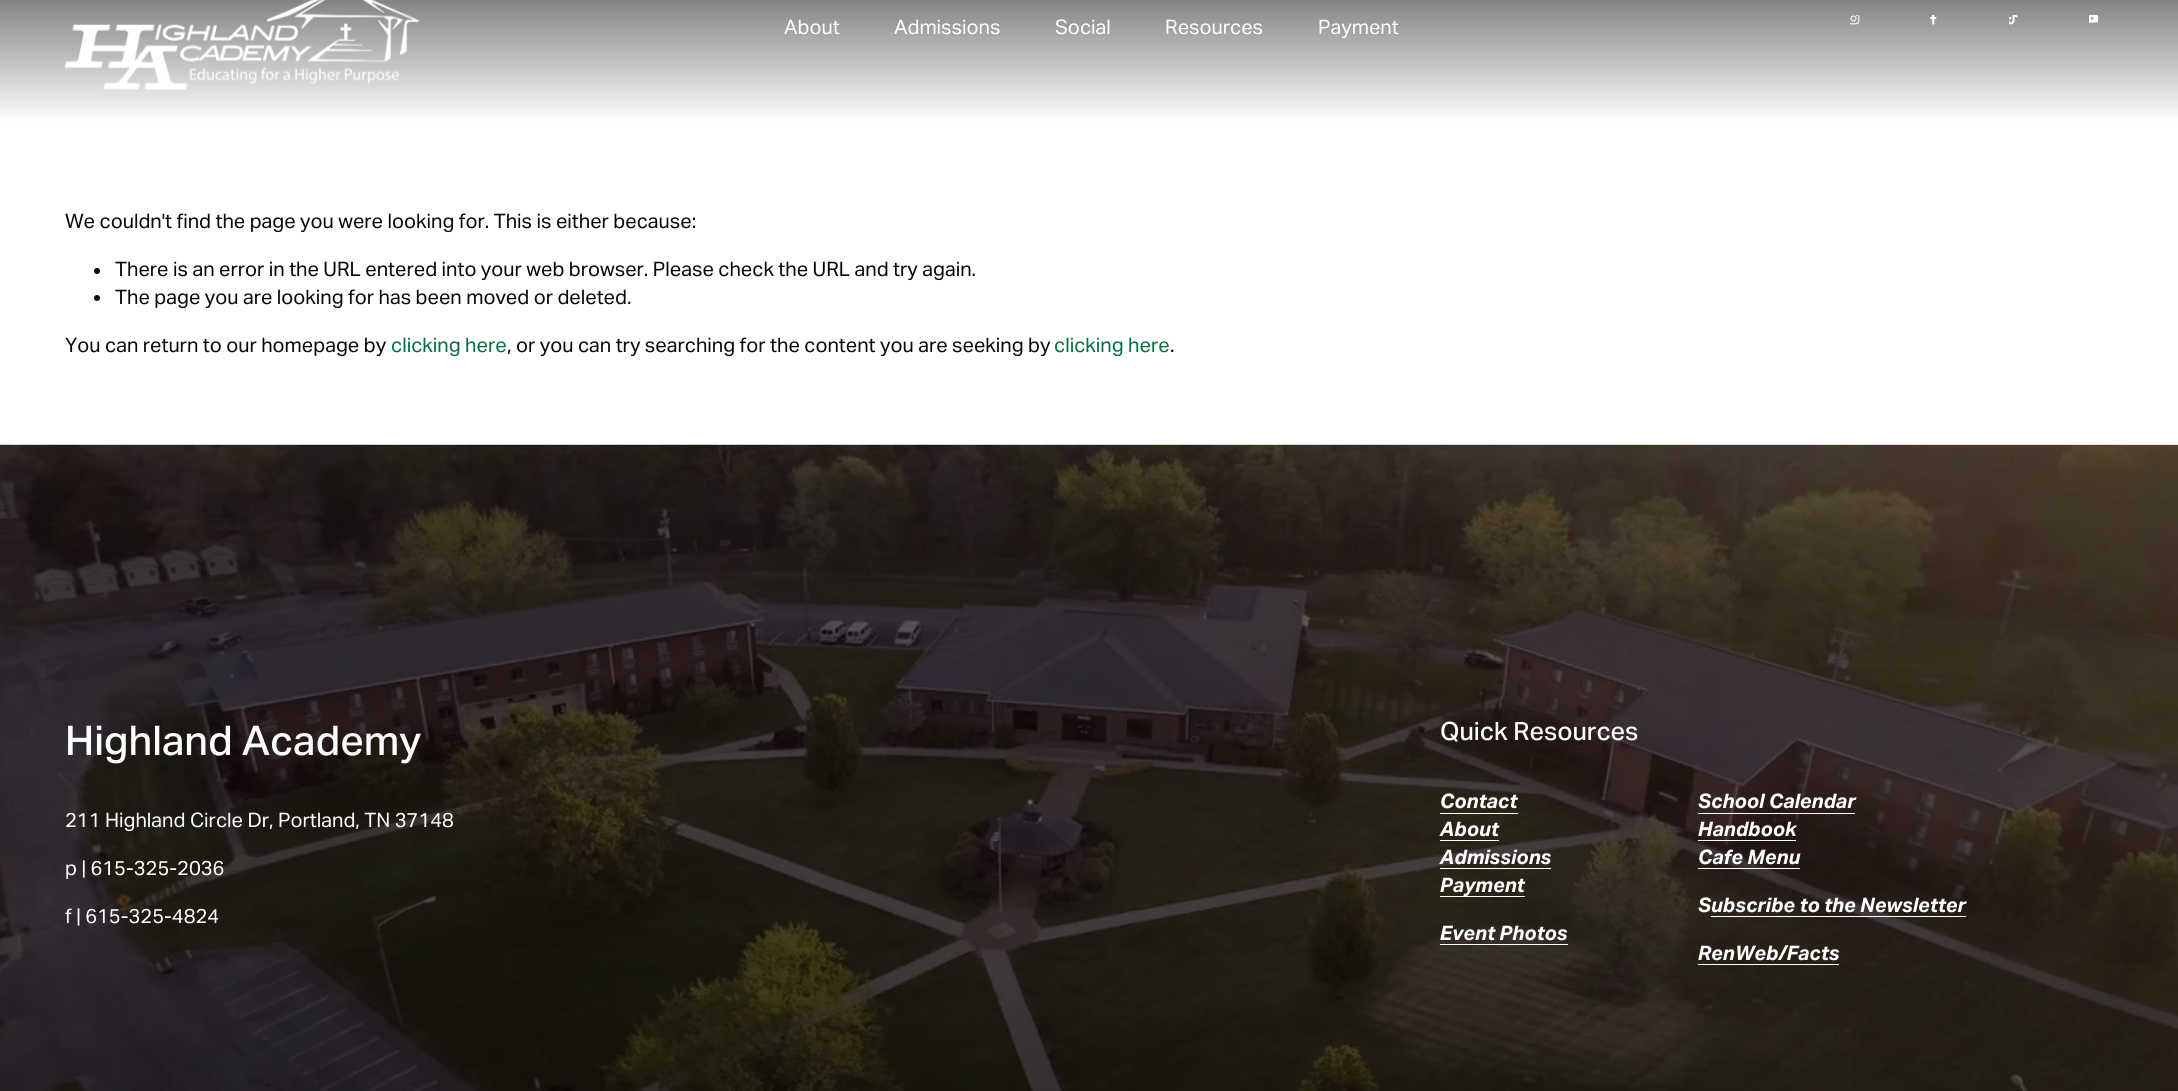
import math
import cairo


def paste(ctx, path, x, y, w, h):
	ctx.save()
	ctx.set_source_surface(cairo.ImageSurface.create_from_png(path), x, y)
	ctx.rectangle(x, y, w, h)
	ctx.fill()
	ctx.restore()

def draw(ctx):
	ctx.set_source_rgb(1, 1, 1)
	ctx.paint()
	gradient = cairo.LinearGradient(1089, -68, 1089, 123)
	gradient.add_color_stop_rgba(0, 0.251, 0.251, 0.251, 1)
	gradient.add_color_stop_rgba(1, 1, 1, 1, 1)
	ctx.set_source(gradient)
	ctx.rectangle(0, 0, 2178, 121)
	ctx.fill()
	paste(ctx, 'media/1.png', 65, 0, 354, 90)
	ctx.select_font_face('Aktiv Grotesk')
	ctx.set_font_size(20)
	ctx.set_source_rgb(1, 1, 1)
	for x, y, s in [
		(784, 34, 'About'),
		(894, 34, 'Admissions'),
		(1055, 34, 'Social'),
		(1165, 34, 'Resources'),
		(1318, 34, 'Payment'),
	]:
		ctx.move_to(x, y)
		ctx.show_text(s)
	paste(ctx, 'media/2.png', 1850, 15, 10, 10)
	paste(ctx, 'media/3.png', 1930, 15, 7, 10)
	paste(ctx, 'media/4.png', 2009, 15, 9, 10)
	paste(ctx, 'media/5.png', 2089, 15, 10, 8)
	ctx.set_source_rgb(0.039, 0.039, 0.039)
	ctx.move_to(65, 228)
	ctx.show_text('We couldn\'t find the page you were looking for. This is either because:')
	ctx.new_path()
	ctx.arc(97, 271, 3, 0, 2 * math.pi)
	ctx.fill()
	ctx.move_to(115, 276)
	ctx.show_text('There is an error in the URL entered into your web browser. Please check the URL and try again.')
	ctx.new_path()
	ctx.arc(97, 298, 3, 0, 2 * math.pi)
	ctx.fill()
	ctx.move_to(115, 304)
	ctx.show_text('The page you are looking for has been moved or deleted.')
	ctx.move_to(65, 352)
	ctx.show_text('You can return to our homepage by')
	ctx.set_source_rgb(0, 0.439, 0.235)
	ctx.move_to(391, 352)
	ctx.show_text('clicking here')
	ctx.set_source_rgb(0.039, 0.039, 0.039)
	ctx.move_to(507, 352)
	ctx.show_text(', or you can try searching for the content you are seeking by')
	ctx.set_source_rgb(0, 0.439, 0.235)
	ctx.move_to(1054, 352)
	ctx.show_text('clicking here')
	ctx.set_source_rgb(0.039, 0.039, 0.039)
	ctx.move_to(1170, 352)
	ctx.show_text('.')
	paste(ctx, 'media/6.png', 0, 444, 2178, 647)
	ctx.select_font_face('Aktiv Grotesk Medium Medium')
	ctx.set_font_size(41)
	ctx.set_source_rgb(1, 1, 1)
	ctx.move_to(65, 755)
	ctx.show_text('Highland Academy')
	ctx.select_font_face('Aktiv Grotesk')
	ctx.set_font_size(20)
	for x, y, s in [
		(65, 827, '211 Highland Circle Dr, Portland, TN 37148'),
		(65, 875, 'p | 615-325-2036'),
		(65, 923, 'f | 615-325-4824'),
	]:
		ctx.move_to(x, y)
		ctx.show_text(s)
	ctx.select_font_face('Aktiv Grotesk Medium Medium')
	ctx.set_font_size(25.25)
	ctx.move_to(1440, 740)
	ctx.show_text('Quick Resources')
	ctx.select_font_face('Aktiv Grotesk', cairo.FONT_SLANT_ITALIC, cairo.FONT_WEIGHT_BOLD)
	ctx.set_font_size(20)
	ctx.move_to(1440, 808)
	ctx.show_text('Contact')
	ctx.rectangle(1440, 813, 78, 1)
	ctx.fill()
	ctx.move_to(1440, 836)
	ctx.show_text('About')
	ctx.rectangle(1440, 840, 59, 1)
	ctx.fill()
	ctx.move_to(1440, 864)
	ctx.show_text('Admissions')
	ctx.rectangle(1440, 868, 111, 1)
	ctx.fill()
	ctx.rectangle(1440, 896, 85, 1)
	ctx.fill()
	ctx.move_to(1440, 892)
	ctx.show_text('Payment')
	ctx.move_to(1440, 940)
	ctx.show_text('Event Photos')
	ctx.rectangle(1440, 944, 128, 1)
	ctx.fill()
	ctx.move_to(1698, 808)
	ctx.show_text('School Calendar')
	ctx.rectangle(1698, 813, 157, 1)
	ctx.fill()
	ctx.move_to(1698, 836)
	ctx.show_text('Handbook')
	ctx.rectangle(1698, 840, 98, 1)
	ctx.fill()
	ctx.move_to(1698, 864)
	ctx.show_text('Cafe Menu')
	ctx.rectangle(1698, 868, 102, 1)
	ctx.fill()
	ctx.move_to(1698, 912)
	ctx.show_text('Subscribe to the Newsletter')
	ctx.rectangle(1711, 916, 255, 1)
	ctx.fill()
	ctx.move_to(1698, 960)
	ctx.show_text('RenWeb/Facts')
	ctx.rectangle(1698, 964, 141, 1)
	ctx.fill()


surface = cairo.ImageSurface(cairo.FORMAT_RGB24, 2178, 1091)
ctx = cairo.Context(surface)
options = cairo.FontOptions()
options.set_hint_metrics(cairo.HINT_METRICS_OFF)
options.set_hint_style(cairo.HINT_STYLE_NONE)
ctx.set_font_options(options)
ctx.set_miter_limit(4)
draw(ctx)
surface.write_to_png('image.png')
